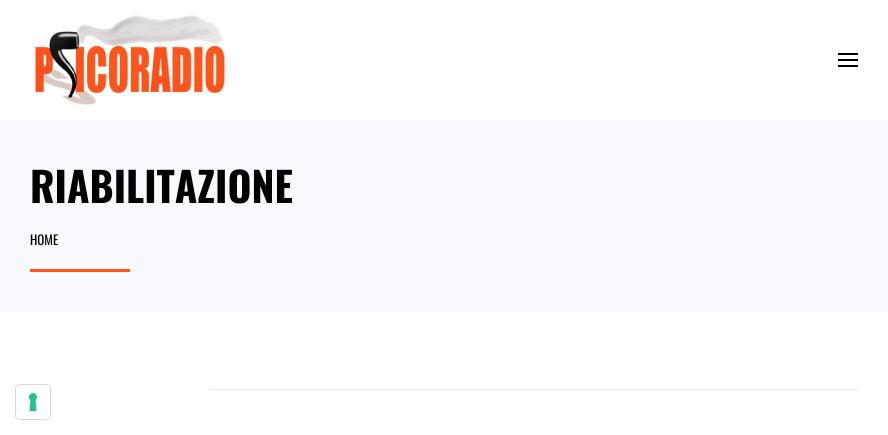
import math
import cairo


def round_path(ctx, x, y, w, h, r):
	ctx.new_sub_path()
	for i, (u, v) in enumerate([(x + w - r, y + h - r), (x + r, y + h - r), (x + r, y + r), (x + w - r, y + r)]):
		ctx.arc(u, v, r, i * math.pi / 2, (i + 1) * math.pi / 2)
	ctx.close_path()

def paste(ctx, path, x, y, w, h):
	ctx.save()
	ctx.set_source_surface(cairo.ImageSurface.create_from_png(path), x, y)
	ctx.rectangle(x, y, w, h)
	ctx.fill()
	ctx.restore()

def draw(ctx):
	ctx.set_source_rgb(1, 1, 1)
	ctx.paint()
	paste(ctx, 'media/1.png', 35, 15, 190, 90)
	ctx.set_source_rgb(0, 0, 0)
	ctx.rectangle(838, 53, 20, 2)
	ctx.rectangle(838, 59, 20, 2)
	ctx.rectangle(838, 65, 20, 2)
	ctx.fill()
	ctx.set_source_rgb(0.965, 0.976, 0.988)
	ctx.rectangle(0, 120, 888, 192)
	ctx.fill()
	ctx.select_font_face('Oswald', cairo.FONT_SLANT_NORMAL, cairo.FONT_WEIGHT_BOLD)
	ctx.set_font_size(41)
	ctx.set_source_rgb(0, 0, 0)
	ctx.move_to(30, 203)
	ctx.show_text('RIABILITAZIONE')
	ctx.select_font_face('Oswald')
	ctx.set_font_size(13)
	ctx.move_to(30, 245)
	ctx.show_text('HOME')
	ctx.set_source_rgb(0.988, 0.337, 0.11)
	ctx.rectangle(30, 269, 100, 3)
	ctx.fill()
	ctx.set_source_rgb(0.902, 0.902, 0.902)
	ctx.rectangle(211, 389, 647, 1)
	ctx.fill()
	round_path(ctx, 15.5, 384.5, 35, 35, 4.5)
	ctx.set_source_rgb(0.851, 0.851, 0.851)
	ctx.set_line_width(1)
	ctx.stroke()
	ctx.set_source_rgb(1, 1, 1)
	round_path(ctx, 16, 385, 34, 34, 4)
	ctx.fill()
	paste(ctx, 'media/2.png', 29, 393, 8, 18)


surface = cairo.ImageSurface(cairo.FORMAT_RGB24, 888, 435)
ctx = cairo.Context(surface)
options = cairo.FontOptions()
options.set_hint_metrics(cairo.HINT_METRICS_OFF)
options.set_hint_style(cairo.HINT_STYLE_NONE)
ctx.set_font_options(options)
ctx.set_miter_limit(4)
draw(ctx)
surface.write_to_png('image.png')
